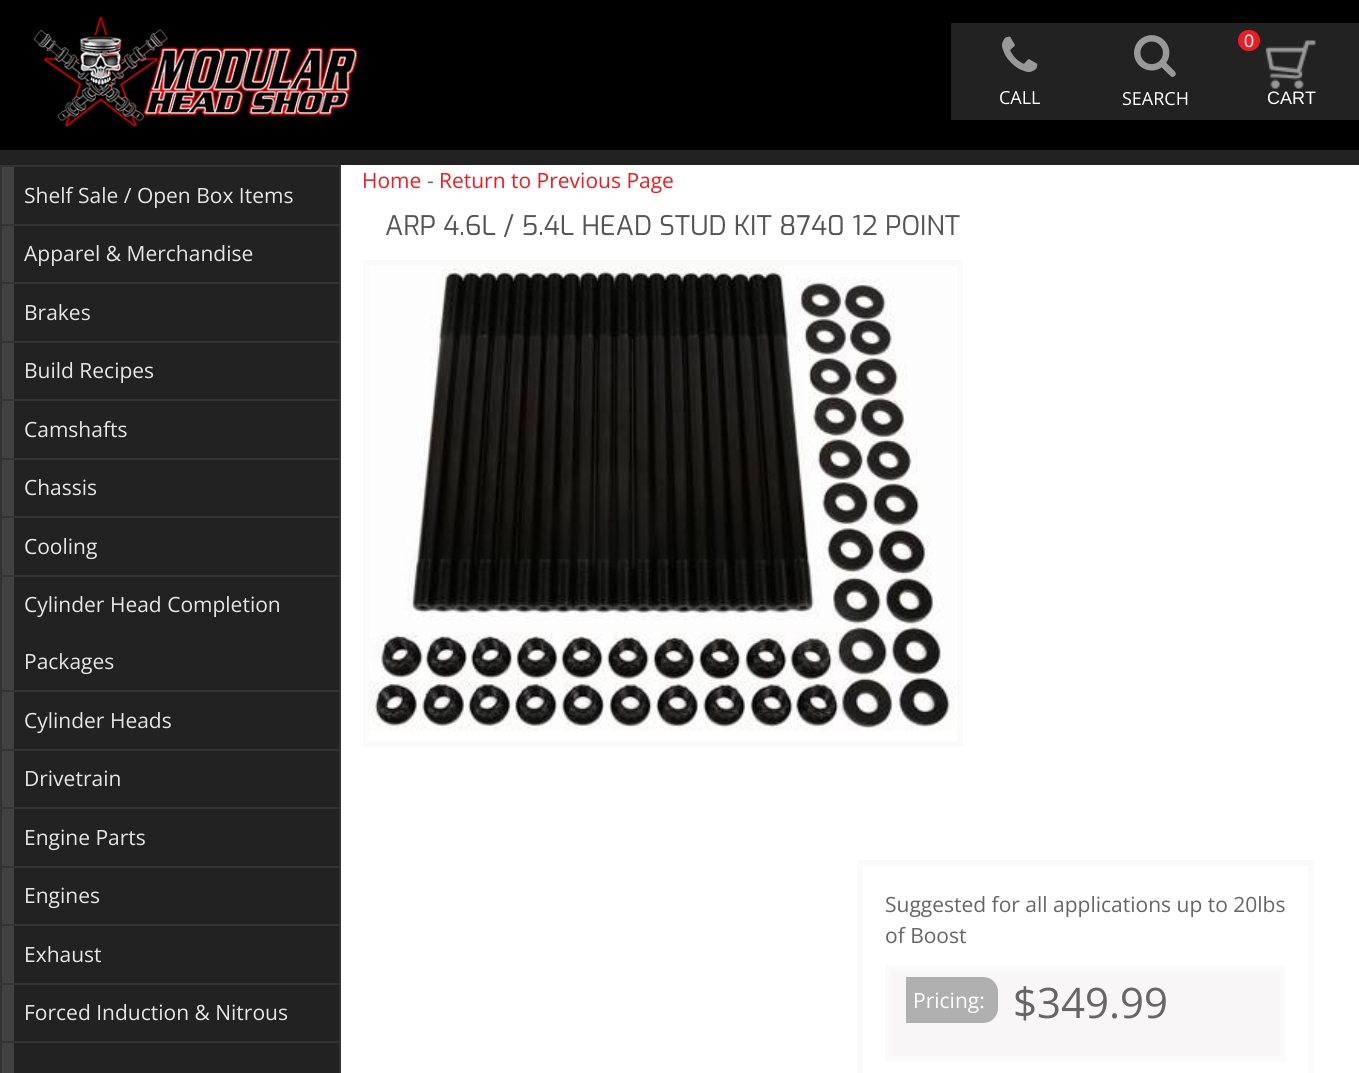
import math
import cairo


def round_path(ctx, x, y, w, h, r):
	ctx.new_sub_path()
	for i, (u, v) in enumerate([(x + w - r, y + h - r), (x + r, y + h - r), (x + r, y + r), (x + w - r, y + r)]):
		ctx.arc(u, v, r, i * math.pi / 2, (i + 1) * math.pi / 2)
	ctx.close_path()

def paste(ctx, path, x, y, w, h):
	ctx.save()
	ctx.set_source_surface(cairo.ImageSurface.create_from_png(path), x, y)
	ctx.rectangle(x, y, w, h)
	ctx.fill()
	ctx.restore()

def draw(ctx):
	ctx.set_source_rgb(1, 1, 1)
	ctx.paint()
	ctx.set_source_rgb(0, 0, 0)
	ctx.rectangle(0, 0, 1359, 150)
	ctx.fill()
	ctx.set_source_rgb(0.133, 0.133, 0.133)
	ctx.rectangle(0, 150, 1359, 15)
	ctx.fill()
	paste(ctx, 'media/1.png', 33, 17, 325, 109)
	ctx.rectangle(951, 23, 272, 97)
	ctx.fill()
	paste(ctx, 'media/2.png', 1002, 36, 36, 36)
	ctx.select_font_face('Open Sans')
	ctx.set_font_size(18)
	ctx.set_source_rgb(1, 1, 1)
	ctx.move_to(999, 104)
	ctx.show_text('CALL')
	paste(ctx, 'media/3.png', 1134, 35, 42, 42)
	ctx.move_to(1122, 105)
	ctx.show_text('SEARCH')
	ctx.set_source_rgb(0.133, 0.133, 0.133)
	ctx.rectangle(1223, 23, 136, 97)
	ctx.fill()
	ctx.set_source_rgb(0.929, 0.11, 0.141)
	round_path(ctx, 1238, 30, 22, 21, 10.5)
	ctx.fill()
	ctx.select_font_face('Liberation Sans')
	ctx.set_source_rgb(1, 1, 1)
	ctx.move_to(1244, 47)
	ctx.show_text('0')
	paste(ctx, 'media/4.png', 1265, 40, 51, 49)
	ctx.move_to(1267, 104)
	ctx.show_text('CART')
	ctx.set_source_rgb(0.133, 0.133, 0.133)
	ctx.rectangle(14, 167, 325, 57)
	ctx.fill()
	ctx.set_source_rgb(0.255, 0.255, 0.255)
	ctx.rectangle(2, 167, 12, 57)
	ctx.fill()
	ctx.set_source_rgb(0.2, 0.2, 0.2)
	ctx.rectangle(0, 165, 341, 2)
	ctx.rectangle(339, 165, 2, 59)
	ctx.rectangle(0, 165, 2, 59)
	ctx.fill()
	ctx.select_font_face('Open Sans')
	ctx.set_font_size(21)
	ctx.set_source_rgb(0.902, 0.902, 0.902)
	ctx.move_to(24, 203)
	ctx.show_text('Shelf Sale / Open Box Items')
	ctx.set_source_rgb(0.133, 0.133, 0.133)
	ctx.rectangle(14, 226, 325, 56)
	ctx.fill()
	ctx.set_source_rgb(0.255, 0.255, 0.255)
	ctx.rectangle(2, 226, 12, 56)
	ctx.fill()
	ctx.set_source_rgb(0.2, 0.2, 0.2)
	ctx.rectangle(0, 224, 341, 2)
	ctx.rectangle(339, 224, 2, 58)
	ctx.rectangle(0, 224, 2, 58)
	ctx.fill()
	ctx.set_source_rgb(0.902, 0.902, 0.902)
	ctx.move_to(24, 261)
	ctx.show_text('Apparel & Merchandise')
	ctx.set_source_rgb(0.133, 0.133, 0.133)
	ctx.rectangle(14, 284, 325, 57)
	ctx.fill()
	ctx.set_source_rgb(0.255, 0.255, 0.255)
	ctx.rectangle(2, 284, 12, 57)
	ctx.fill()
	ctx.set_source_rgb(0.2, 0.2, 0.2)
	ctx.rectangle(0, 282, 341, 2)
	ctx.rectangle(339, 282, 2, 59)
	ctx.rectangle(0, 282, 2, 59)
	ctx.fill()
	ctx.set_source_rgb(0.902, 0.902, 0.902)
	ctx.move_to(24, 320)
	ctx.show_text('Brakes')
	ctx.set_source_rgb(0.133, 0.133, 0.133)
	ctx.rectangle(14, 343, 325, 56)
	ctx.fill()
	ctx.set_source_rgb(0.255, 0.255, 0.255)
	ctx.rectangle(2, 343, 12, 56)
	ctx.fill()
	ctx.set_source_rgb(0.2, 0.2, 0.2)
	ctx.rectangle(0, 341, 341, 2)
	ctx.rectangle(339, 341, 2, 58)
	ctx.rectangle(0, 341, 2, 58)
	ctx.fill()
	ctx.set_source_rgb(0.902, 0.902, 0.902)
	ctx.move_to(24, 378)
	ctx.show_text('Build Recipes')
	ctx.set_source_rgb(0.133, 0.133, 0.133)
	ctx.rectangle(14, 401, 325, 57)
	ctx.fill()
	ctx.set_source_rgb(0.255, 0.255, 0.255)
	ctx.rectangle(2, 401, 12, 57)
	ctx.fill()
	ctx.set_source_rgb(0.2, 0.2, 0.2)
	ctx.rectangle(0, 399, 341, 2)
	ctx.rectangle(339, 399, 2, 59)
	ctx.rectangle(0, 399, 2, 59)
	ctx.fill()
	ctx.set_source_rgb(0.902, 0.902, 0.902)
	ctx.move_to(24, 437)
	ctx.show_text('Camshafts')
	ctx.set_source_rgb(0.133, 0.133, 0.133)
	ctx.rectangle(14, 460, 325, 56)
	ctx.fill()
	ctx.set_source_rgb(0.255, 0.255, 0.255)
	ctx.rectangle(2, 460, 12, 56)
	ctx.fill()
	ctx.set_source_rgb(0.2, 0.2, 0.2)
	ctx.rectangle(0, 458, 341, 2)
	ctx.rectangle(339, 458, 2, 58)
	ctx.rectangle(0, 458, 2, 58)
	ctx.fill()
	ctx.set_source_rgb(0.902, 0.902, 0.902)
	ctx.move_to(24, 495)
	ctx.show_text('Chassis')
	ctx.set_source_rgb(0.133, 0.133, 0.133)
	ctx.rectangle(14, 518, 325, 57)
	ctx.fill()
	ctx.set_source_rgb(0.255, 0.255, 0.255)
	ctx.rectangle(2, 518, 12, 57)
	ctx.fill()
	ctx.set_source_rgb(0.2, 0.2, 0.2)
	ctx.rectangle(0, 516, 341, 2)
	ctx.rectangle(339, 516, 2, 59)
	ctx.rectangle(0, 516, 2, 59)
	ctx.fill()
	ctx.set_source_rgb(0.902, 0.902, 0.902)
	ctx.move_to(24, 554)
	ctx.show_text('Cooling')
	ctx.set_source_rgb(0.133, 0.133, 0.133)
	ctx.rectangle(14, 577, 325, 113)
	ctx.fill()
	ctx.set_source_rgb(0.255, 0.255, 0.255)
	ctx.rectangle(2, 577, 12, 113)
	ctx.fill()
	ctx.set_source_rgb(0.2, 0.2, 0.2)
	ctx.rectangle(0, 575, 341, 2)
	ctx.rectangle(339, 575, 2, 115)
	ctx.rectangle(0, 575, 2, 115)
	ctx.fill()
	ctx.set_source_rgb(0.902, 0.902, 0.902)
	ctx.move_to(24, 612)
	ctx.show_text('Cylinder Head Completion')
	ctx.move_to(24, 669)
	ctx.show_text('Packages')
	ctx.set_source_rgb(0.133, 0.133, 0.133)
	ctx.rectangle(14, 692, 325, 57)
	ctx.fill()
	ctx.set_source_rgb(0.255, 0.255, 0.255)
	ctx.rectangle(2, 692, 12, 57)
	ctx.fill()
	ctx.set_source_rgb(0.2, 0.2, 0.2)
	ctx.rectangle(0, 690, 341, 2)
	ctx.rectangle(339, 690, 2, 59)
	ctx.rectangle(0, 690, 2, 59)
	ctx.fill()
	ctx.set_source_rgb(0.902, 0.902, 0.902)
	ctx.move_to(24, 728)
	ctx.show_text('Cylinder Heads')
	ctx.set_source_rgb(0.133, 0.133, 0.133)
	ctx.rectangle(14, 751, 325, 56)
	ctx.fill()
	ctx.set_source_rgb(0.255, 0.255, 0.255)
	ctx.rectangle(2, 751, 12, 56)
	ctx.fill()
	ctx.set_source_rgb(0.2, 0.2, 0.2)
	ctx.rectangle(0, 749, 341, 2)
	ctx.rectangle(339, 749, 2, 58)
	ctx.rectangle(0, 749, 2, 58)
	ctx.fill()
	ctx.set_source_rgb(0.902, 0.902, 0.902)
	ctx.move_to(24, 786)
	ctx.show_text('Drivetrain')
	ctx.set_source_rgb(0.133, 0.133, 0.133)
	ctx.rectangle(14, 809, 325, 57)
	ctx.fill()
	ctx.set_source_rgb(0.255, 0.255, 0.255)
	ctx.rectangle(2, 809, 12, 57)
	ctx.fill()
	ctx.set_source_rgb(0.2, 0.2, 0.2)
	ctx.rectangle(0, 807, 341, 2)
	ctx.rectangle(339, 807, 2, 59)
	ctx.rectangle(0, 807, 2, 59)
	ctx.fill()
	ctx.set_source_rgb(0.902, 0.902, 0.902)
	ctx.move_to(24, 845)
	ctx.show_text('Engine Parts')
	ctx.set_source_rgb(0.133, 0.133, 0.133)
	ctx.rectangle(14, 868, 325, 56)
	ctx.fill()
	ctx.set_source_rgb(0.255, 0.255, 0.255)
	ctx.rectangle(2, 868, 12, 56)
	ctx.fill()
	ctx.set_source_rgb(0.2, 0.2, 0.2)
	ctx.rectangle(0, 866, 341, 2)
	ctx.rectangle(339, 866, 2, 58)
	ctx.rectangle(0, 866, 2, 58)
	ctx.fill()
	ctx.set_source_rgb(0.902, 0.902, 0.902)
	ctx.move_to(24, 903)
	ctx.show_text('Engines')
	ctx.set_source_rgb(0.133, 0.133, 0.133)
	ctx.rectangle(14, 926, 325, 57)
	ctx.fill()
	ctx.set_source_rgb(0.255, 0.255, 0.255)
	ctx.rectangle(2, 926, 12, 57)
	ctx.fill()
	ctx.set_source_rgb(0.2, 0.2, 0.2)
	ctx.rectangle(0, 924, 341, 2)
	ctx.rectangle(339, 924, 2, 59)
	ctx.rectangle(0, 924, 2, 59)
	ctx.fill()
	ctx.set_source_rgb(0.902, 0.902, 0.902)
	ctx.move_to(24, 962)
	ctx.show_text('Exhaust')
	ctx.set_source_rgb(0.133, 0.133, 0.133)
	ctx.rectangle(14, 985, 325, 56)
	ctx.fill()
	ctx.set_source_rgb(0.255, 0.255, 0.255)
	ctx.rectangle(2, 985, 12, 56)
	ctx.fill()
	ctx.set_source_rgb(0.2, 0.2, 0.2)
	ctx.rectangle(0, 983, 341, 2)
	ctx.rectangle(339, 983, 2, 58)
	ctx.rectangle(0, 983, 2, 58)
	ctx.fill()
	ctx.set_source_rgb(0.902, 0.902, 0.902)
	ctx.move_to(24, 1020)
	ctx.show_text('Forced Induction & Nitrous')
	ctx.set_source_rgb(0.133, 0.133, 0.133)
	ctx.rectangle(14, 1043, 325, 30)
	ctx.fill()
	ctx.set_source_rgb(0.255, 0.255, 0.255)
	ctx.rectangle(2, 1043, 12, 30)
	ctx.fill()
	ctx.set_source_rgb(0.2, 0.2, 0.2)
	ctx.rectangle(0, 1041, 341, 2)
	ctx.rectangle(339, 1041, 2, 32)
	ctx.rectangle(0, 1041, 2, 32)
	ctx.fill()
	ctx.set_source_rgb(0.929, 0.11, 0.141)
	ctx.move_to(362, 188)
	ctx.show_text('Home')
	ctx.set_source_rgb(0.4, 0.4, 0.4)
	ctx.move_to(427, 188)
	ctx.show_text('-')
	ctx.set_source_rgb(0.929, 0.11, 0.141)
	ctx.move_to(439, 188)
	ctx.show_text('Return to Previous Page')
	ctx.select_font_face('Exo')
	ctx.set_font_size(27)
	ctx.set_source_rgb(0.333, 0.333, 0.333)
	ctx.move_to(385, 235)
	ctx.show_text('ARP 4.6L / 5.4L HEAD STUD KIT 8740 12 POINT')
	ctx.rectangle(366, 263, 594, 481)
	ctx.set_source_rgb(0.98, 0.98, 0.98)
	ctx.set_line_width(6)
	ctx.stroke()
	paste(ctx, 'media/5.png', 369, 266, 587, 465)
	ctx.rectangle(860, 863, 451, 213)
	ctx.stroke()
	ctx.select_font_face('Open Sans')
	ctx.set_font_size(21)
	ctx.set_source_rgb(0.4, 0.4, 0.4)
	ctx.move_to(885, 912)
	ctx.show_text('Suggested for all applications up to 20lbs')
	ctx.move_to(885, 943)
	ctx.show_text('of Boost')
	ctx.set_source_rgb(0.969, 0.961, 0.965)
	ctx.rectangle(888, 969, 395, 90)
	ctx.fill_preserve()
	ctx.set_source_rgb(0.98, 0.98, 0.98)
	ctx.stroke()
	ctx.set_source_rgb(0.69, 0.69, 0.69)
	ctx.new_path()
	ctx.move_to(906, 977)
	ctx.line_to(983, 977)
	ctx.curve_to(991.5, 977, 998, 983.5, 998, 992)
	ctx.line_to(998, 1008)
	ctx.curve_to(998, 1016.5, 991.5, 1023, 983, 1023)
	ctx.line_to(906, 1023)
	ctx.close_path()
	ctx.fill()
	ctx.set_source_rgb(1, 1, 1)
	ctx.move_to(913, 1008)
	ctx.show_text('Pricing:')
	ctx.set_font_size(42)
	ctx.set_source_rgb(0.4, 0.4, 0.4)
	ctx.move_to(1013, 1018)
	ctx.show_text('$349.99')


surface = cairo.ImageSurface(cairo.FORMAT_RGB24, 1359, 1073)
ctx = cairo.Context(surface)
options = cairo.FontOptions()
options.set_hint_metrics(cairo.HINT_METRICS_OFF)
options.set_hint_style(cairo.HINT_STYLE_NONE)
ctx.set_font_options(options)
ctx.set_miter_limit(4)
draw(ctx)
surface.write_to_png('image.png')
